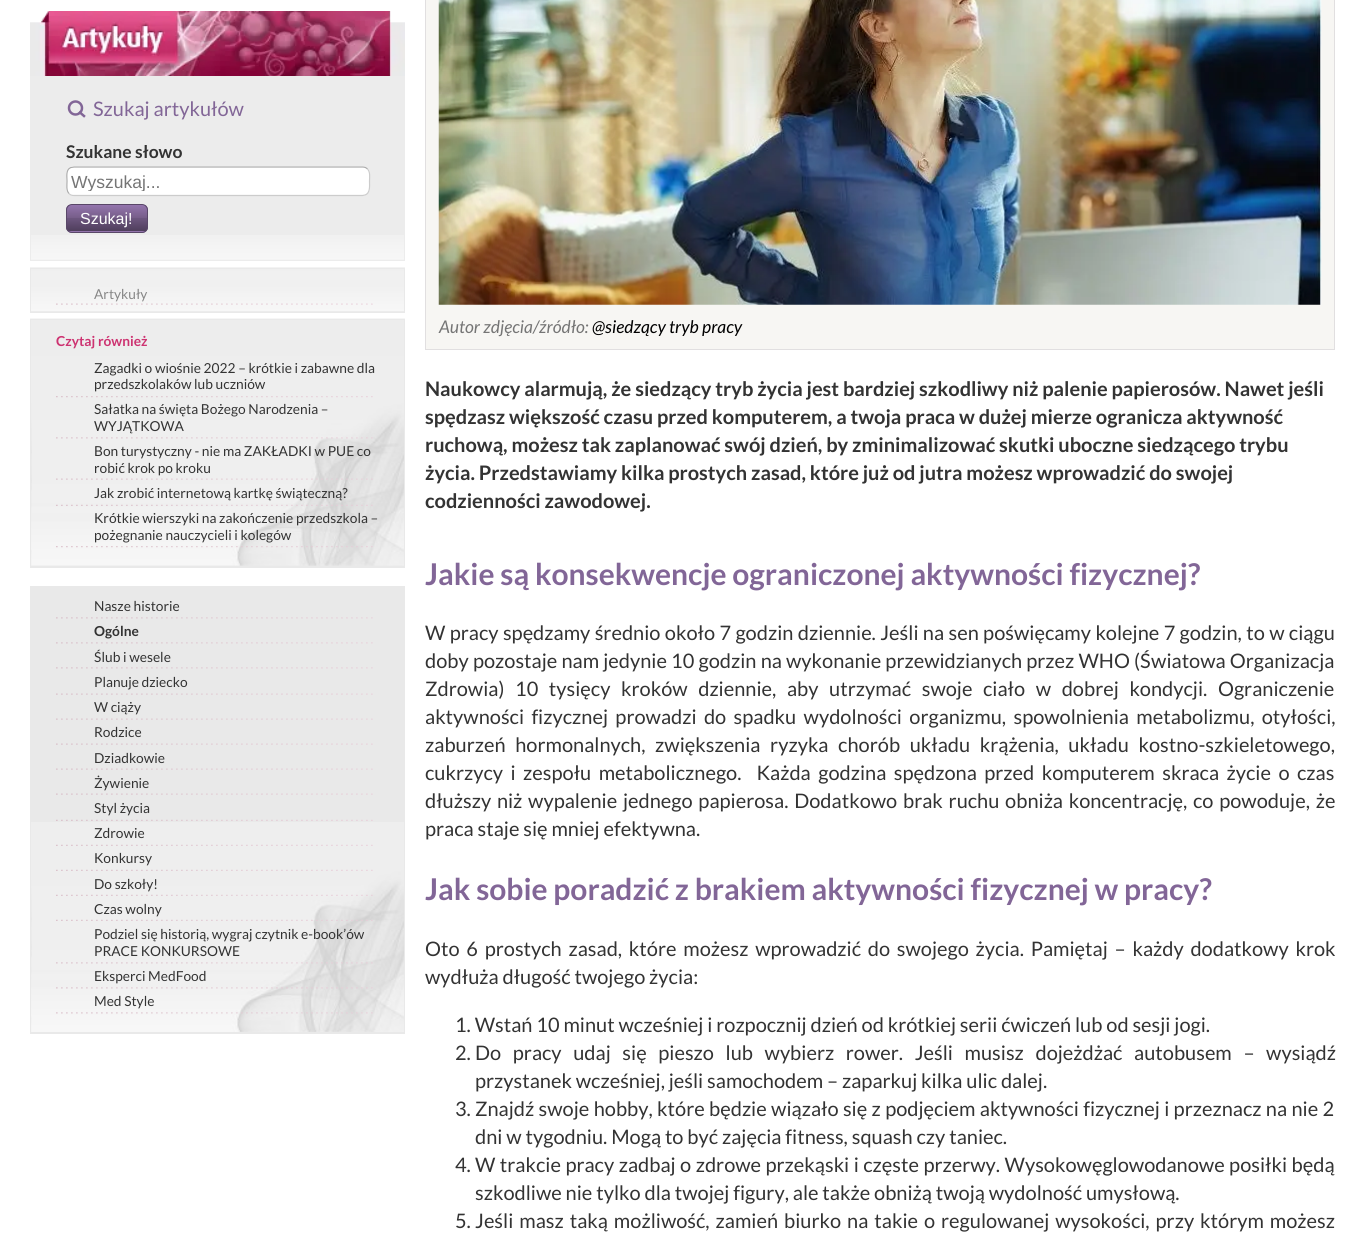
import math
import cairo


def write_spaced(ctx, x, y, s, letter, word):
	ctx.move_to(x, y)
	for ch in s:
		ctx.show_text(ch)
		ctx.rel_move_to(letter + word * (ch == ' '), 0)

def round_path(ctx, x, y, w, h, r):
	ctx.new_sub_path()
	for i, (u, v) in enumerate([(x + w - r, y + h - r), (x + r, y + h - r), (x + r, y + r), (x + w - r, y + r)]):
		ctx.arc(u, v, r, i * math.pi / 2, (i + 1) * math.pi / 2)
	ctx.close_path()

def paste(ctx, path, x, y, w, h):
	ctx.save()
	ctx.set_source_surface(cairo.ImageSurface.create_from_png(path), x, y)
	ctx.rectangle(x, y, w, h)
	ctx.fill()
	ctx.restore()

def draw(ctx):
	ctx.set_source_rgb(1, 1, 1)
	ctx.paint()
	paste(ctx, 'media/1.png', 30, 11, 375, 65)
	ctx.set_source_rgb(0.925, 0.925, 0.925)
	ctx.rectangle(31, 77, 373, 183)
	ctx.fill()
	paste(ctx, 'media/2.png', 31, 235, 373, 25)
	ctx.rectangle(30.5, 76.5, 374, 184)
	ctx.set_line_width(1)
	ctx.stroke()
	ctx.arc(75.5, 108, 6.5, 0, 2 * math.pi)
	ctx.set_source_rgb(0.51, 0.4, 0.592)
	ctx.set_line_width(2.5)
	ctx.stroke()
	ctx.new_path()
	ctx.move_to(84, 116)
	ctx.line_to(80, 112.5)
	ctx.set_line_cap(cairo.LINE_CAP_SQUARE)
	ctx.stroke()
	ctx.select_font_face('Lato')
	ctx.set_font_size(20)
	ctx.move_to(93, 116)
	ctx.show_text('Szukaj artykułów')
	ctx.select_font_face('Lato', cairo.FONT_SLANT_NORMAL, cairo.FONT_WEIGHT_BOLD)
	ctx.set_font_size(17.5)
	ctx.set_source_rgb(0.2, 0.2, 0.2)
	ctx.move_to(66, 158)
	ctx.show_text('Szukane słowo')
	ctx.set_source_rgb(1, 1, 1)
	round_path(ctx, 66, 166, 304, 30, 8)
	ctx.fill()
	ctx.new_path()
	ctx.move_to(367.5, 169)
	ctx.curve_to(370.5, 172, 369.5, 177.5, 369.5, 181)
	ctx.curve_to(369.5, 186, 370.5, 193, 365, 195)
	ctx.line_to(362.5, 195.5)
	ctx.line_to(74, 195.5)
	ctx.curve_to(72, 195.5, 70, 195, 69, 193.5)
	ctx.set_source_rgb(0.8, 0.8, 0.8)
	ctx.set_line_width(1.2)
	ctx.set_line_cap(cairo.LINE_CAP_BUTT)
	ctx.stroke()
	ctx.new_path()
	ctx.move_to(69, 193.5)
	ctx.curve_to(66, 190.5, 67, 185, 67, 181)
	ctx.curve_to(67, 176.5, 65.5, 169.5, 71, 167.5)
	ctx.line_to(74, 167)
	ctx.line_to(362.5, 167)
	ctx.curve_to(364.5, 167, 366, 167.5, 367.5, 169)
	ctx.set_source_rgb(0.667, 0.667, 0.667)
	ctx.stroke()
	ctx.save()
	ctx.rectangle(71, 171, 294, 20)
	ctx.clip()
	ctx.select_font_face('Liberation Sans')
	ctx.set_source_rgb(0.459, 0.459, 0.459)
	ctx.move_to(71, 188)
	ctx.show_text('Wyszukaj...')
	ctx.restore()
	ctx.save()
	round_path(ctx, 66, 204, 82, 29, 6)
	ctx.clip()
	gradient = cairo.LinearGradient(107, 205, 107, 231)
	gradient.add_color_stop_rgba(0, 0.58, 0.459, 0.678, 1)
	gradient.add_color_stop_rgba(0.5, 0.463, 0.365, 0.537, 1)
	gradient.add_color_stop_rgba(0.51, 0.427, 0.337, 0.498, 1)
	gradient.add_color_stop_rgba(1, 0.31, 0.243, 0.361, 1)
	ctx.set_source(gradient)
	ctx.rectangle(66, 205, 82, 26)
	ctx.fill()
	gradient = cairo.LinearGradient(107, 231, 107, 258)
	gradient.add_color_stop_rgba(0, 0.58, 0.459, 0.678, 1)
	gradient.add_color_stop_rgba(0.5, 0.463, 0.365, 0.537, 1)
	gradient.add_color_stop_rgba(0.51, 0.427, 0.337, 0.498, 1)
	gradient.add_color_stop_rgba(1, 0.31, 0.243, 0.361, 1)
	ctx.set_source(gradient)
	ctx.rectangle(66, 231, 82, 2)
	ctx.fill()
	ctx.restore()
	round_path(ctx, 66.5, 204.5, 81, 28, 5.5)
	ctx.set_source_rgb(0.349, 0.278, 0.408)
	ctx.set_line_width(1)
	ctx.stroke()
	ctx.select_font_face('Liberation Sans')
	ctx.set_font_size(16)
	ctx.set_source_rgb(1, 1, 1)
	ctx.move_to(80, 224)
	ctx.show_text('Szukaj!')
	ctx.set_source_rgb(0.925, 0.925, 0.925)
	ctx.rectangle(31, 311, 373, 1)
	ctx.fill()
	paste(ctx, 'media/3.png', 30, 267, 375, 44)
	ctx.rectangle(30.5, 268.5, 374, 44)
	ctx.set_source_rgb(0.914, 0.914, 0.914)
	ctx.stroke()
	paste(ctx, 'media/4.png', 56, 303, 317, 2)
	ctx.select_font_face('Lato')
	ctx.set_font_size(13.75)
	ctx.set_source_rgb(0.529, 0.529, 0.529)
	ctx.move_to(94, 299)
	ctx.show_text('Artykuły')
	ctx.set_source_rgb(0.914, 0.914, 0.914)
	ctx.rectangle(31, 566, 373, 1)
	ctx.fill()
	paste(ctx, 'media/5.png', 30, 318, 375, 248)
	ctx.rectangle(30.5, 319.5, 374, 248)
	ctx.stroke()
	ctx.select_font_face('Lato', cairo.FONT_SLANT_NORMAL, cairo.FONT_WEIGHT_BOLD)
	ctx.set_source_rgb(0.804, 0.2, 0.443)
	ctx.move_to(56, 346)
	ctx.show_text('Czytaj również')
	paste(ctx, 'media/6.png', 56, 396, 317, 2)
	ctx.select_font_face('Lato')
	ctx.set_source_rgb(0.2, 0.2, 0.2)
	ctx.move_to(94, 373)
	ctx.show_text('Zagadki o wiośnie 2022 – krótkie i zabawne dla')
	ctx.move_to(94, 389)
	ctx.show_text('przedszkolaków lub uczniów')
	paste(ctx, 'media/7.png', 56, 437, 317, 2)
	ctx.move_to(94, 414)
	ctx.show_text('Sałatka na święta Bożego Narodzenia –')
	ctx.move_to(94, 431)
	ctx.show_text('WYJĄTKOWA')
	paste(ctx, 'media/8.png', 56, 478, 317, 2)
	ctx.move_to(94, 456)
	ctx.show_text('Bon turystyczny - nie ma ZAKŁADKI w PUE co')
	ctx.move_to(94, 473)
	ctx.show_text('robić krok po kroku')
	paste(ctx, 'media/9.png', 56, 504, 317, 2)
	ctx.move_to(94, 498)
	ctx.show_text('Jak zrobić internetową kartkę świąteczną?')
	paste(ctx, 'media/10.png', 56, 546, 317, 2)
	ctx.move_to(94, 523)
	ctx.show_text('Krótkie wierszyki na zakończenie przedszkola –')
	ctx.move_to(94, 540)
	ctx.show_text('pożegnanie nauczycieli i kolegów')
	ctx.set_source_rgb(0.914, 0.914, 0.914)
	ctx.rectangle(31, 587, 373, 446)
	ctx.fill()
	paste(ctx, 'media/11.png', 31, 822, 373, 210)
	ctx.rectangle(30.5, 586.5, 374, 447)
	ctx.stroke()
	paste(ctx, 'media/12.png', 56, 617, 317, 2)
	ctx.set_source_rgb(0.2, 0.2, 0.2)
	ctx.move_to(94, 611)
	ctx.show_text('Nasze historie')
	paste(ctx, 'media/12.png', 56, 642, 317, 2)
	ctx.select_font_face('Lato', cairo.FONT_SLANT_NORMAL, cairo.FONT_WEIGHT_BOLD)
	ctx.move_to(94, 636)
	ctx.show_text('Ogólne')
	paste(ctx, 'media/12.png', 56, 667, 317, 2)
	ctx.select_font_face('Lato')
	ctx.move_to(94, 662)
	ctx.show_text('Ślub i wesele')
	paste(ctx, 'media/13.png', 56, 693, 317, 2)
	ctx.move_to(94, 687)
	ctx.show_text('Planuje dziecko')
	paste(ctx, 'media/13.png', 56, 718, 317, 2)
	ctx.move_to(94, 712)
	ctx.show_text('W ciąży')
	paste(ctx, 'media/13.png', 56, 743, 317, 2)
	ctx.move_to(94, 737)
	ctx.show_text('Rodzice')
	paste(ctx, 'media/13.png', 56, 768, 317, 2)
	ctx.move_to(94, 763)
	ctx.show_text('Dziadkowie')
	paste(ctx, 'media/13.png', 56, 793, 317, 2)
	ctx.move_to(94, 788)
	ctx.show_text('Żywienie')
	paste(ctx, 'media/14.png', 56, 819, 317, 2)
	ctx.move_to(94, 813)
	ctx.show_text('Styl życia')
	paste(ctx, 'media/15.png', 56, 844, 317, 2)
	ctx.move_to(94, 838)
	ctx.show_text('Zdrowie')
	paste(ctx, 'media/15.png', 56, 869, 317, 2)
	ctx.move_to(94, 863)
	ctx.show_text('Konkursy')
	paste(ctx, 'media/16.png', 56, 894, 317, 2)
	ctx.move_to(94, 889)
	ctx.show_text('Do szkoły!')
	paste(ctx, 'media/17.png', 56, 919, 317, 2)
	ctx.move_to(94, 914)
	ctx.show_text('Czas wolny')
	paste(ctx, 'media/18.png', 56, 962, 317, 2)
	ctx.move_to(94, 939)
	ctx.show_text('Podziel się historią, wygraj czytnik e-book’ów')
	ctx.move_to(94, 956)
	ctx.show_text('PRACE KONKURSOWE')
	paste(ctx, 'media/19.png', 56, 987, 317, 2)
	ctx.move_to(94, 981)
	ctx.show_text('Eksperci MedFood')
	paste(ctx, 'media/20.png', 56, 1012, 317, 2)
	ctx.move_to(94, 1006)
	ctx.show_text('Med Style')
	ctx.set_source_rgb(0.965, 0.961, 0.953)
	ctx.rectangle(425.5, -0.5, 909, 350)
	ctx.fill_preserve()
	ctx.set_source_rgb(0.882, 0.875, 0.878)
	ctx.stroke()
	paste(ctx, 'media/21.png', 438, 0, 884, 305)
	ctx.select_font_face('Lato', cairo.FONT_SLANT_ITALIC)
	ctx.set_font_size(17.5)
	ctx.set_source_rgb(0.459, 0.459, 0.459)
	ctx.move_to(439, 333)
	ctx.show_text('Autor zdjęcia/źródło:')
	ctx.set_source_rgb(0, 0, 0)
	ctx.move_to(592, 333)
	ctx.show_text('@siedzący tryb pracy')
	ctx.select_font_face('Lato', cairo.FONT_SLANT_NORMAL, cairo.FONT_WEIGHT_BOLD)
	ctx.set_font_size(20)
	ctx.set_source_rgb(0.2, 0.2, 0.2)
	for x, y, s in [
		(425, 396, 'Naukowcy alarmują, że siedzący tryb życia jest bardziej szkodliwy niż palenie papierosów. Nawet jeśli'),
		(425, 424, 'spędzasz większość czasu przed komputerem, a twoja praca w dużej mierze ogranicza aktywność'),
		(425, 452, 'ruchową, możesz tak zaplanować swój dzień, by zminimalizować skutki uboczne siedzącego trybu'),
		(425, 480, 'życia. Przedstawiamy kilka prostych zasad, które już od jutra możesz wprowadzić do swojej'),
		(425, 508, 'codzienności zawodowej.'),
	]:
		ctx.move_to(x, y)
		ctx.show_text(s)
	ctx.set_font_size(30)
	ctx.set_source_rgb(0.51, 0.4, 0.592)
	ctx.move_to(425, 585)
	ctx.show_text('Jakie są konsekwencje ograniczonej aktywności fizycznej?')
	ctx.select_font_face('Lato')
	ctx.set_font_size(20)
	ctx.set_source_rgb(0.2, 0.2, 0.2)
	write_spaced(ctx, 425, 640, 'W pracy spędzamy średnio około 7 godzin dziennie. Jeśli na sen poświęcamy kolejne 7 godzin, to w ciągu', 0, 0.5)
	write_spaced(ctx, 425, 668, 'doby pozostaje nam jedynie 10 godzin na wykonanie przewidzianych przez WHO (Światowa Organizacja', 0, 0.3)
	write_spaced(ctx, 425, 696, 'Zdrowia) 10 tysięcy kroków dziennie, aby utrzymać swoje ciało w dobrej kondycji. Ograniczenie', 0, 6.75)
	write_spaced(ctx, 425, 724, 'aktywności fizycznej prowadzi do spadku wydolności organizmu, spowolnienia metabolizmu, otyłości,', 0, 3.5)
	write_spaced(ctx, 425, 752, 'zaburzeń hormonalnych, zwiększenia ryzyka chorób układu krążenia, układu kostno-szkieletowego,', 0, 5.75)
	write_spaced(ctx, 425, 780, 'cukrzycy i zespołu metabolicznego.  Każda godzina spędzona przed komputerem skraca życie o czas', 0, 3.6)
	write_spaced(ctx, 425, 808, 'dłuższy niż wypalenie jednego papierosa. Dodatkowo brak ruchu obniża koncentrację, co powoduje, że', 0, 1.9)
	ctx.move_to(425, 836)
	ctx.show_text('praca staje się mniej efektywna.')
	ctx.select_font_face('Lato', cairo.FONT_SLANT_NORMAL, cairo.FONT_WEIGHT_BOLD)
	ctx.set_font_size(30)
	ctx.set_source_rgb(0.51, 0.4, 0.592)
	ctx.move_to(425, 900)
	ctx.show_text('Jak sobie poradzić z brakiem aktywności fizycznej w pracy?')
	ctx.select_font_face('Lato')
	ctx.set_font_size(20)
	ctx.set_source_rgb(0.2, 0.2, 0.2)
	write_spaced(ctx, 425, 956, 'Oto 6 prostych zasad, które możesz wprowadzić do swojego życia. Pamiętaj – każdy dodatkowy krok', 0, 2.9)
	for x, y, s in [
		(425, 984, 'wydłuża długość twojego życia:'),
		(455, 1032, '1. Wstań 10 minut wcześniej i rozpocznij dzień od krótkiej serii ćwiczeń lub od sesji jogi.'),
		(455, 1060, '2.'),
	]:
		ctx.move_to(x, y)
		ctx.show_text(s)
	write_spaced(ctx, 475, 1060, 'Do pracy udaj się pieszo lub wybierz rower. Jeśli musisz dojeżdżać autobusem – wysiądź', 0, 7.75)
	ctx.move_to(475, 1088)
	ctx.show_text('przystanek wcześniej, jeśli samochodem – zaparkuj kilka ulic dalej.')
	ctx.move_to(455, 1116)
	ctx.show_text('3.')
	write_spaced(ctx, 475, 1116, 'Znajdź swoje hobby, które będzie wiązało się z podjęciem aktywności fizycznej i przeznacz na nie 2', 0, 0.5)
	ctx.move_to(475, 1144)
	ctx.show_text('dni w tygodniu. Mogą to być zajęcia fitness, squash czy taniec.')
	ctx.move_to(455, 1172)
	ctx.show_text('4.')
	write_spaced(ctx, 475, 1172, 'W trakcie pracy zadbaj o zdrowe przekąski i częste przerwy. Wysokowęglowodanowe posiłki będą', 0, 0.6)
	ctx.move_to(475, 1200)
	ctx.show_text('szkodliwe nie tylko dla twojej figury, ale także obniżą twoją wydolność umysłową.')
	ctx.move_to(455, 1228)
	ctx.show_text('5.')
	write_spaced(ctx, 475, 1228, 'Jeśli masz taką możliwość, zamień biurko na takie o regulowanej wysokości, przy którym możesz', 0, 2.1)


surface = cairo.ImageSurface(cairo.FORMAT_RGB24, 1364, 1248)
ctx = cairo.Context(surface)
options = cairo.FontOptions()
options.set_hint_metrics(cairo.HINT_METRICS_OFF)
options.set_hint_style(cairo.HINT_STYLE_NONE)
ctx.set_font_options(options)
ctx.set_miter_limit(4)
draw(ctx)
surface.write_to_png('image.png')
